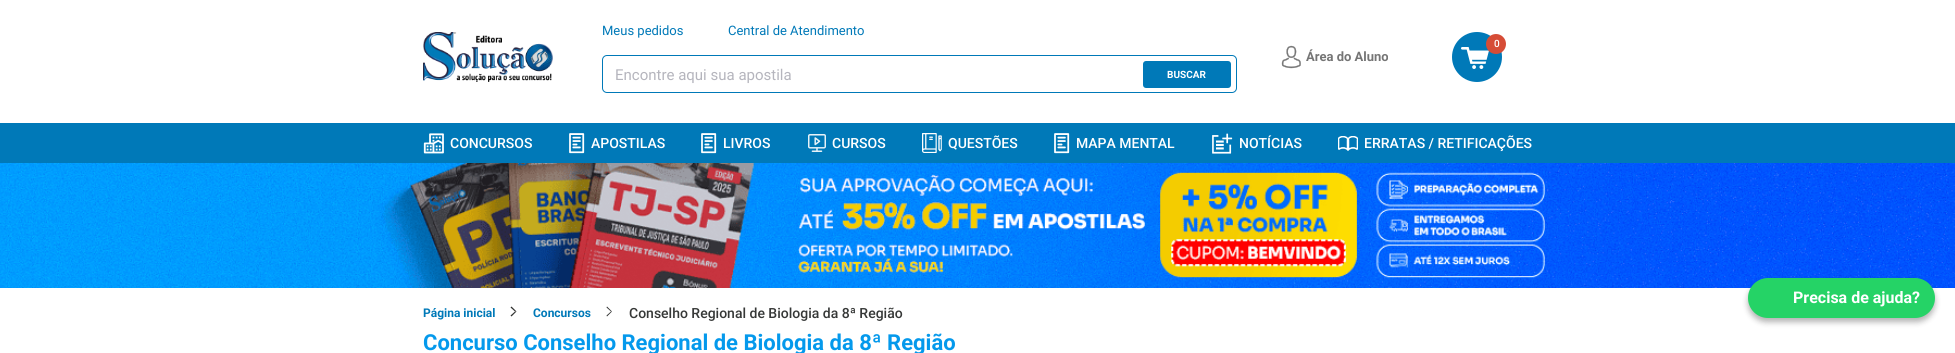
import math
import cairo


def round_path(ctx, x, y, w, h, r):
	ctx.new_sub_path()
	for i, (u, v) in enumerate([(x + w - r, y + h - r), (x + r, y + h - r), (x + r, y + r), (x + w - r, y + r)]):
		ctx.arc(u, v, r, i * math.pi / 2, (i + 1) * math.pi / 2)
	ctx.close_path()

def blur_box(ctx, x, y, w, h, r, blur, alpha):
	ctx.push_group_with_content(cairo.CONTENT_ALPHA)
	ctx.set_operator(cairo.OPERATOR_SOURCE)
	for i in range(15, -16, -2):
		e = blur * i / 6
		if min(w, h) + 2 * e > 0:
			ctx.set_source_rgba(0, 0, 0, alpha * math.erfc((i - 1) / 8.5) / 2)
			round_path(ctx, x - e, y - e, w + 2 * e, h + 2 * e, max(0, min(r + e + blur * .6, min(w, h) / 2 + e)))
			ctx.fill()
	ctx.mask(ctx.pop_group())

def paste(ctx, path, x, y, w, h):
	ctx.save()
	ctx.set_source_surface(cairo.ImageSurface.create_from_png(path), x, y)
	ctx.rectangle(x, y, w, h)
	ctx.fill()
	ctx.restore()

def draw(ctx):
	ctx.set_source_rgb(1, 1, 1)
	ctx.paint()
	paste(ctx, 'media/1.png', 423, 32, 130, 50)
	ctx.select_font_face('Roboto')
	ctx.set_font_size(13)
	ctx.set_source_rgb(0, 0.475, 0.722)
	ctx.move_to(602, 35)
	ctx.show_text('Meus pedidos')
	ctx.move_to(728, 35)
	ctx.show_text('Central de Atendimento')
	round_path(ctx, 602.5, 55.5, 634, 37, 4.5)
	ctx.set_line_width(1)
	ctx.stroke()
	ctx.set_font_size(15)
	ctx.set_source_rgb(0.71, 0.71, 0.741)
	ctx.move_to(615, 80)
	ctx.show_text('Encontre aqui sua apostila')
	ctx.set_source_rgb(0, 0.475, 0.722)
	round_path(ctx, 1143, 61, 88, 27, 3)
	ctx.fill()
	ctx.select_font_face('Roboto', cairo.FONT_SLANT_NORMAL, cairo.FONT_WEIGHT_BOLD)
	ctx.set_font_size(10)
	ctx.set_source_rgb(1, 1, 1)
	ctx.move_to(1167, 78)
	ctx.show_text('BUSCAR')
	ctx.set_source_rgb(0, 0.475, 0.722)
	ctx.new_path()
	ctx.arc(1477, 57, 25, 0, 2 * math.pi)
	ctx.fill()
	paste(ctx, 'media/2.png', 1461, 47, 28, 22)
	ctx.set_source_rgb(0.839, 0.298, 0.212)
	ctx.arc(1496, 44, 10, 0, 2 * math.pi)
	ctx.fill()
	ctx.select_font_face('Roboto Medium')
	ctx.set_source_rgb(1, 1, 1)
	ctx.move_to(1494, 47)
	ctx.show_text('0')
	paste(ctx, 'media/3.png', 1281, 45, 20, 24)
	ctx.select_font_face('Roboto', cairo.FONT_SLANT_NORMAL, cairo.FONT_WEIGHT_BOLD)
	ctx.set_font_size(13)
	ctx.set_source_rgb(0.459, 0.459, 0.459)
	ctx.move_to(1306, 61)
	ctx.show_text('Área do Aluno')
	ctx.set_source_rgb(0, 0.475, 0.722)
	ctx.rectangle(0, 123, 1955, 40)
	ctx.fill()
	paste(ctx, 'media/4.png', 423, 133, 21, 21)
	ctx.select_font_face('Roboto Medium')
	ctx.set_font_size(14)
	ctx.set_source_rgb(1, 1, 1)
	ctx.move_to(450, 148)
	ctx.show_text('CONCURSOS')
	paste(ctx, 'media/5.png', 569, 133, 16, 21)
	ctx.move_to(591, 148)
	ctx.show_text('APOSTILAS')
	paste(ctx, 'media/5.png', 701, 133, 16, 21)
	ctx.move_to(723, 148)
	ctx.show_text('LIVROS')
	paste(ctx, 'media/6.png', 808, 134, 18, 18)
	ctx.move_to(832, 148)
	ctx.show_text('CURSOS')
	paste(ctx, 'media/7.png', 922, 133, 20, 20)
	ctx.move_to(948, 148)
	ctx.show_text('QUESTÕES')
	paste(ctx, 'media/5.png', 1054, 133, 16, 21)
	ctx.move_to(1076, 148)
	ctx.show_text('MAPA MENTAL')
	paste(ctx, 'media/8.png', 1212, 133, 21, 21)
	ctx.move_to(1239, 148)
	ctx.show_text('NOTÍCIAS')
	paste(ctx, 'media/9.png', 1338, 136, 20, 15)
	ctx.move_to(1364, 148)
	ctx.show_text('ERRATAS / RETIFICAÇÕES')
	paste(ctx, 'media/10.png', 0, 163, 1955, 125)
	ctx.select_font_face('Roboto', cairo.FONT_SLANT_NORMAL, cairo.FONT_WEIGHT_BOLD)
	ctx.set_font_size(12)
	ctx.set_source_rgb(0, 0.475, 0.722)
	ctx.move_to(423, 317)
	ctx.show_text('Página inicial')
	ctx.set_source_rgb(0.192, 0.196, 0.192)
	ctx.new_path()
	ctx.move_to(511.5, 306.5)
	ctx.line_to(516.5, 311.5)
	ctx.line_to(515, 311.5)
	ctx.line_to(510.5, 307.5)
	ctx.close_path()
	ctx.fill()
	ctx.new_path()
	ctx.move_to(516.5, 311.5)
	ctx.line_to(511.5, 316.5)
	ctx.line_to(510.5, 315.5)
	ctx.line_to(515, 311.5)
	ctx.close_path()
	ctx.fill()
	ctx.set_source_rgb(0, 0.475, 0.722)
	ctx.move_to(533, 317)
	ctx.show_text('Concursos')
	ctx.set_source_rgb(0.192, 0.196, 0.192)
	ctx.new_path()
	ctx.move_to(607, 306.5)
	ctx.line_to(612, 311.5)
	ctx.line_to(611, 311.5)
	ctx.line_to(606.5, 307.5)
	ctx.close_path()
	ctx.fill()
	ctx.new_path()
	ctx.move_to(612, 311.5)
	ctx.line_to(607, 316.5)
	ctx.line_to(606.5, 315.5)
	ctx.line_to(611, 311.5)
	ctx.close_path()
	ctx.fill()
	ctx.select_font_face('Roboto Medium')
	ctx.set_font_size(14)
	ctx.set_source_rgb(0.212, 0.22, 0.216)
	ctx.move_to(629, 318)
	ctx.show_text('Conselho Regional de Biologia da 8ª Região')
	ctx.select_font_face('Roboto', cairo.FONT_SLANT_NORMAL, cairo.FONT_WEIGHT_BOLD)
	ctx.set_font_size(22)
	ctx.set_source_rgb(0.016, 0.6, 0.925)
	ctx.move_to(423, 350)
	ctx.show_text('Concurso Conselho Regional de Biologia da 8ª Região')
	ctx.set_source_rgb(0, 0, 0)
	blur_box(ctx, 1748, 282, 187, 40, 20, 3, 0.3)
	ctx.set_source_rgb(0.145, 0.827, 0.4)
	round_path(ctx, 1748, 278, 187, 40, 20)
	ctx.fill()
	ctx.set_font_size(16)
	ctx.set_source_rgb(1, 1, 1)
	ctx.move_to(1793, 303)
	ctx.show_text('Precisa de ajuda?')


surface = cairo.ImageSurface(cairo.FORMAT_RGB24, 1955, 353)
ctx = cairo.Context(surface)
options = cairo.FontOptions()
options.set_hint_metrics(cairo.HINT_METRICS_OFF)
options.set_hint_style(cairo.HINT_STYLE_NONE)
ctx.set_font_options(options)
ctx.set_miter_limit(4)
draw(ctx)
surface.write_to_png('image.png')
